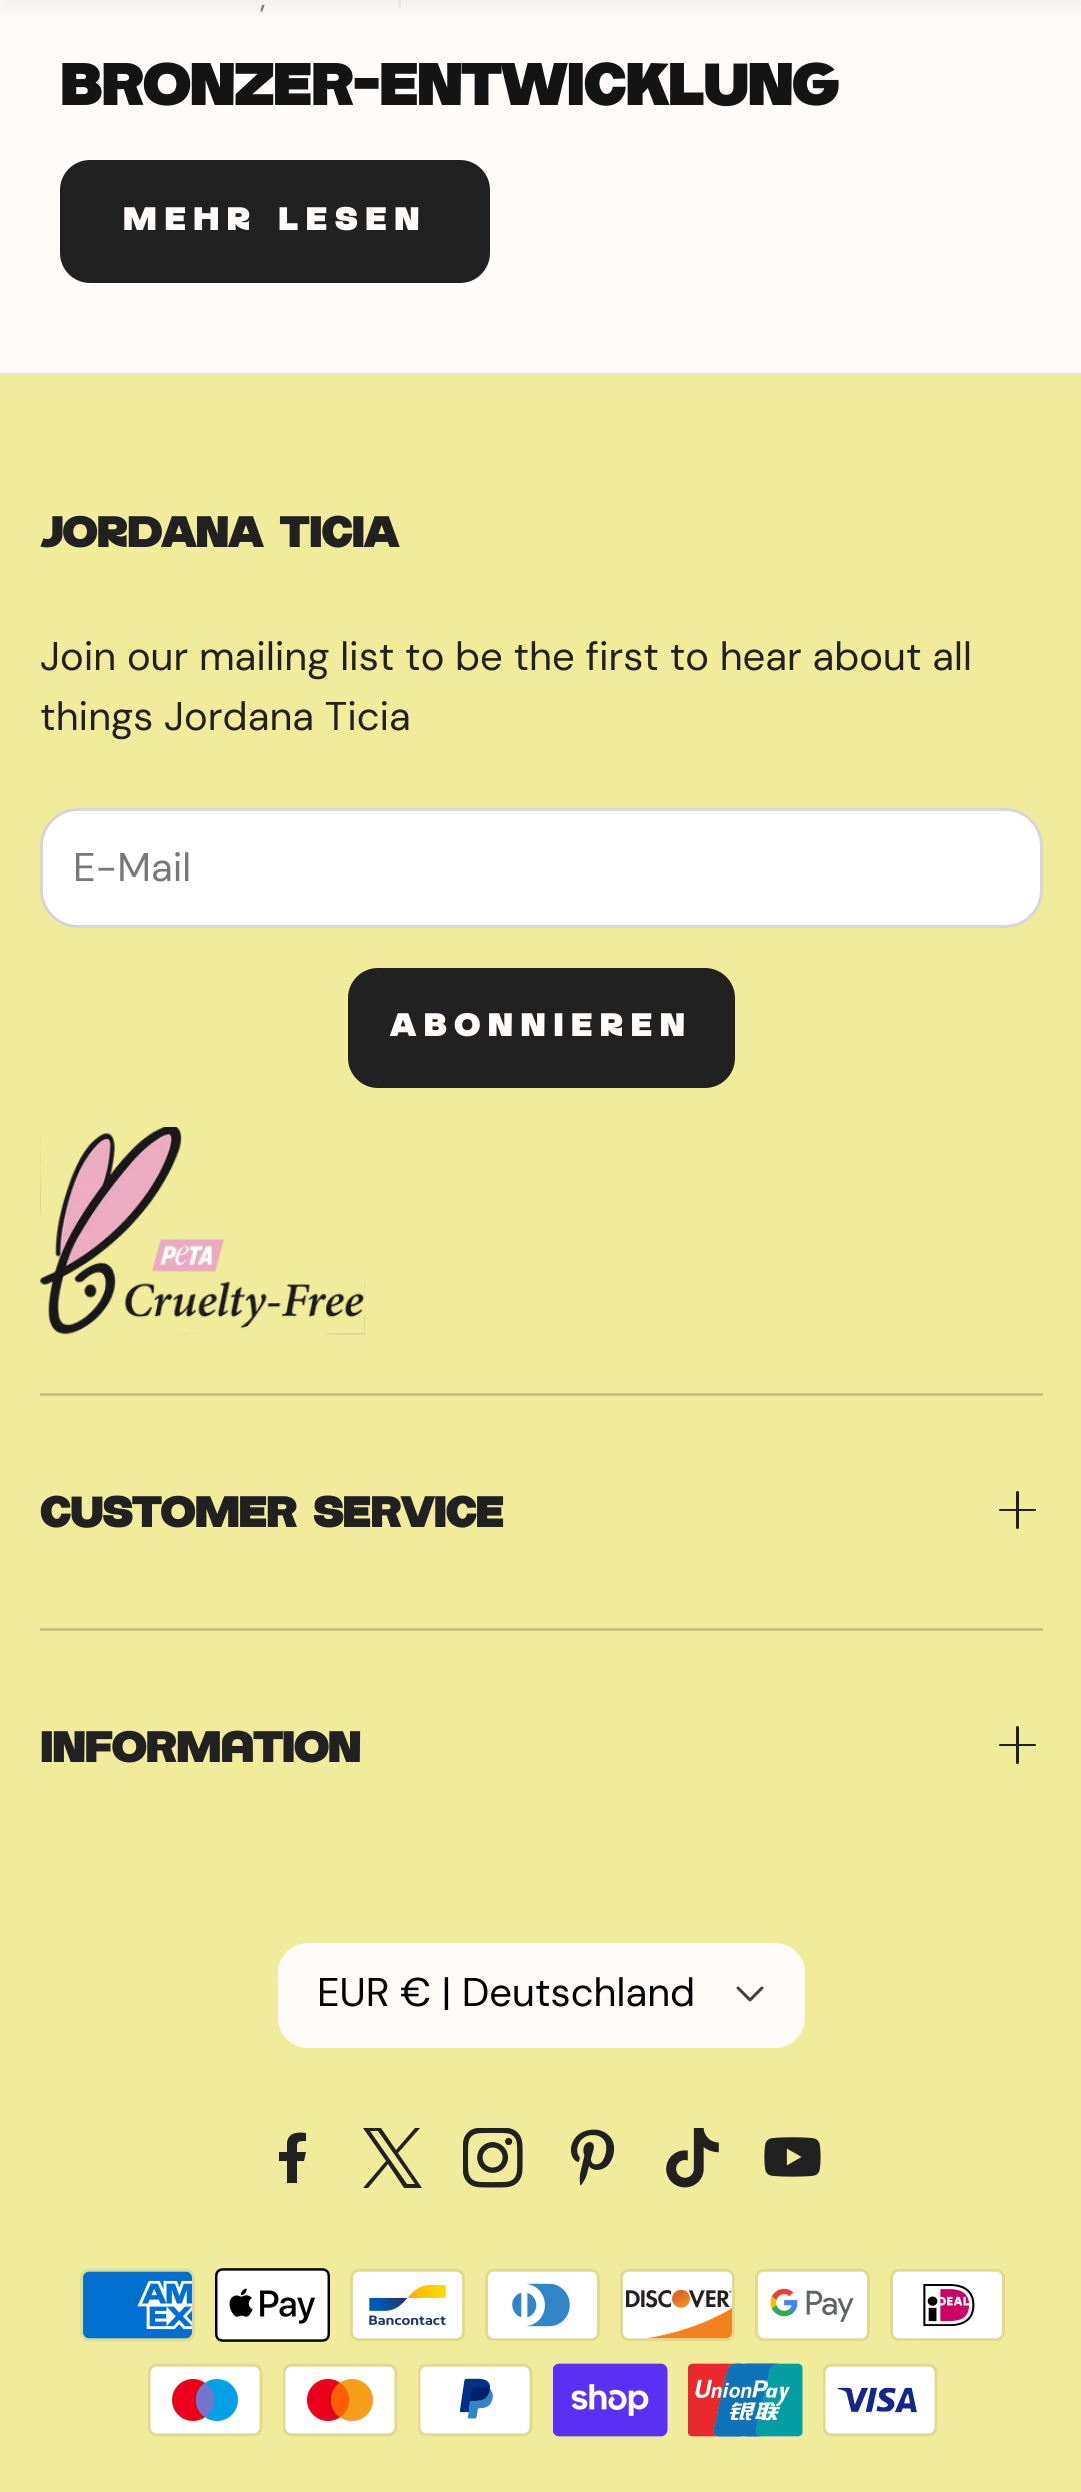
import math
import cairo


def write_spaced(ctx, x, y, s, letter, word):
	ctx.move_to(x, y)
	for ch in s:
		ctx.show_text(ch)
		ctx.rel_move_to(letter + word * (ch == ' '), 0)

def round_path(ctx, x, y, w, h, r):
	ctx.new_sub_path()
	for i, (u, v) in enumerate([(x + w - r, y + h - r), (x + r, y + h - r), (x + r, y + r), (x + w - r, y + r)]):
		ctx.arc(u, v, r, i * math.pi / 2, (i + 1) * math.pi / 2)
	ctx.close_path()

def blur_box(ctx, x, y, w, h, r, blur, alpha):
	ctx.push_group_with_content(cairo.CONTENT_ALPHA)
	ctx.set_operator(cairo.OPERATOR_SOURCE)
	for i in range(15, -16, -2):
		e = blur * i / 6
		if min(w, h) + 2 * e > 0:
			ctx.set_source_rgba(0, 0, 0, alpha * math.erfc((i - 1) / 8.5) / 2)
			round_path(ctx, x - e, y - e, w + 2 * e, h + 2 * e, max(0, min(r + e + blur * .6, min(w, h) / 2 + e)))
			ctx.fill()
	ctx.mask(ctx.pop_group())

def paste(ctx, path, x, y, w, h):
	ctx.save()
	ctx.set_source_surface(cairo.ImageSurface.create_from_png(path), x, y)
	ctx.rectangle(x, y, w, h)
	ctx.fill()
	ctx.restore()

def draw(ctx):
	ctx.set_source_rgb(1, 0.984, 0.973)
	ctx.paint()
	ctx.set_source_rgb(0.945, 0.937, 0.933)
	ctx.rectangle(398, 0, 3, 8)
	ctx.fill()
	ctx.set_source_rgb(0, 0, 0)
	blur_box(ctx, 0, -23, 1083, 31, 0, 7.5, 0.05)
	ctx.select_font_face('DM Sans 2')
	ctx.set_font_size(30)
	ctx.set_source_rgb(0.478, 0.471, 0.467)
	write_spaced(ctx, 260, 8, ',', 2, 0)
	ctx.select_font_face('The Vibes')
	ctx.set_font_size(60)
	ctx.set_source_rgb(0.082, 0.082, 0.082)
	write_spaced(ctx, 60, 105, 'Bronzer-Entwicklung', -1.25, 0)
	ctx.set_source_rgb(0.129, 0.129, 0.129)
	round_path(ctx, 60, 160, 430, 123, 30)
	ctx.fill()
	ctx.set_font_size(32.5)
	ctx.set_source_rgb(1, 0.984, 0.973)
	write_spaced(ctx, 123, 230, 'MEHR LESEN', 7.5, 0)
	ctx.set_source_rgb(0.945, 0.922, 0.612)
	ctx.rectangle(0, 373, 1081, 2119)
	ctx.fill()
	ctx.set_font_size(44)
	ctx.set_source_rgb(0.129, 0.129, 0.129)
	write_spaced(ctx, 40, 547, 'JORDANA TICIA', -1.25, 0)
	ctx.select_font_face('DM Sans')
	ctx.set_font_size(40)
	ctx.move_to(40, 670)
	ctx.show_text('Join our mailing list to be the first to hear about all')
	ctx.move_to(40, 730)
	ctx.show_text('things Jordana Ticia')
	ctx.set_source_rgb(1, 1, 1)
	round_path(ctx, 41.5, 809.5, 1000, 117, 36.5)
	ctx.fill_preserve()
	ctx.set_source_rgb(0.839, 0.839, 0.839)
	ctx.set_line_width(3)
	ctx.stroke()
	ctx.set_source_rgb(0.478, 0.471, 0.467)
	ctx.move_to(73, 881)
	ctx.show_text('E-Mail')
	ctx.set_source_rgb(0.129, 0.129, 0.129)
	round_path(ctx, 348, 968, 387, 120, 30)
	ctx.fill()
	ctx.select_font_face('The Vibes')
	ctx.set_font_size(32.5)
	ctx.set_source_rgb(1, 0.984, 0.973)
	write_spaced(ctx, 390, 1036, 'ABONNIEREN', 7.5, 0)
	paste(ctx, 'media/1.png', 40, 1127, 325, 208)
	ctx.set_source_rgb(0.78, 0.765, 0.514)
	ctx.rectangle(40, 1393, 1003, 3)
	ctx.fill()
	ctx.set_font_size(44)
	ctx.set_source_rgb(0.129, 0.129, 0.129)
	write_spaced(ctx, 40, 1527, 'Customer Service', -1.25, 0)
	round_path(ctx, 999, 1509, 37, 2, 1)
	ctx.fill()
	round_path(ctx, 1016, 1491, 3, 38, 1.5)
	ctx.fill()
	ctx.set_source_rgb(0.78, 0.765, 0.514)
	ctx.rectangle(40, 1628, 1003, 3)
	ctx.fill()
	ctx.set_source_rgb(0.129, 0.129, 0.129)
	write_spaced(ctx, 40, 1762, 'Information', -1.25, 0)
	round_path(ctx, 999, 1744, 37, 2, 1)
	ctx.fill()
	round_path(ctx, 1016, 1726, 3, 38, 1.5)
	ctx.fill()
	ctx.set_source_rgb(1, 0.984, 0.973)
	round_path(ctx, 278, 1943, 527, 105, 30)
	ctx.fill()
	ctx.select_font_face('DM Sans')
	ctx.set_font_size(40)
	ctx.set_source_rgb(0, 0, 0)
	ctx.move_to(317, 2006)
	ctx.show_text('EUR € | Deutschland')
	paste(ctx, 'media/2.png', 736, 1986, 28, 16)
	ctx.set_source_rgb(0.129, 0.129, 0.129)
	ctx.new_path()
	ctx.move_to(304, 2161)
	ctx.line_to(306, 2152)
	ctx.line_to(297, 2152)
	ctx.curve_to(297, 2142, 296, 2141, 306, 2141)
	ctx.line_to(306, 2133)
	ctx.curve_to(298, 2132, 289, 2132, 287, 2142)
	ctx.line_to(287, 2152)
	ctx.line_to(279, 2152)
	ctx.line_to(279, 2161)
	ctx.line_to(287, 2161)
	ctx.line_to(287, 2183)
	ctx.line_to(297, 2183)
	ctx.line_to(297, 2161)
	ctx.close_path()
	ctx.fill()
	ctx.new_path()
	ctx.move_to(398, 2153)
	ctx.line_to(420, 2128)
	ctx.line_to(415, 2128)
	ctx.line_to(396, 2150)
	ctx.line_to(381, 2128)
	ctx.line_to(363, 2128)
	ctx.line_to(386, 2161)
	ctx.line_to(363, 2188)
	ctx.line_to(368, 2188)
	ctx.line_to(388, 2164)
	ctx.line_to(404, 2188)
	ctx.line_to(422, 2188)
	ctx.close_path()
	ctx.move_to(391, 2161)
	ctx.line_to(370, 2131)
	ctx.line_to(378, 2131)
	ctx.line_to(415, 2184)
	ctx.line_to(407, 2184)
	ctx.close_path()
	ctx.fill()
	paste(ctx, 'media/3.png', 463, 2128, 60, 60)
	paste(ctx, 'media/4.png', 570, 2129, 45, 57)
	paste(ctx, 'media/5.png', 666, 2128, 53, 60)
	paste(ctx, 'media/6.png', 764, 2137, 57, 40)
	paste(ctx, 'media/7.png', 80, 2268, 115, 74)
	paste(ctx, 'media/8.png', 215, 2268, 115, 74)
	paste(ctx, 'media/9.png', 350, 2268, 115, 74)
	paste(ctx, 'media/10.png', 485, 2268, 115, 74)
	paste(ctx, 'media/11.png', 620, 2268, 115, 74)
	paste(ctx, 'media/12.png', 755, 2268, 115, 74)
	paste(ctx, 'media/13.png', 890, 2269, 115, 72)
	paste(ctx, 'media/14.png', 148, 2363, 115, 74)
	paste(ctx, 'media/15.png', 283, 2363, 115, 74)
	paste(ctx, 'media/16.png', 418, 2363, 115, 74)
	paste(ctx, 'media/17.png', 553, 2363, 115, 74)
	paste(ctx, 'media/18.png', 688, 2363, 115, 74)
	paste(ctx, 'media/19.png', 823, 2363, 115, 74)


surface = cairo.ImageSurface(cairo.FORMAT_RGB24, 1081, 2492)
ctx = cairo.Context(surface)
options = cairo.FontOptions()
options.set_hint_metrics(cairo.HINT_METRICS_OFF)
options.set_hint_style(cairo.HINT_STYLE_NONE)
ctx.set_font_options(options)
ctx.set_miter_limit(4)
draw(ctx)
surface.write_to_png('image.png')
